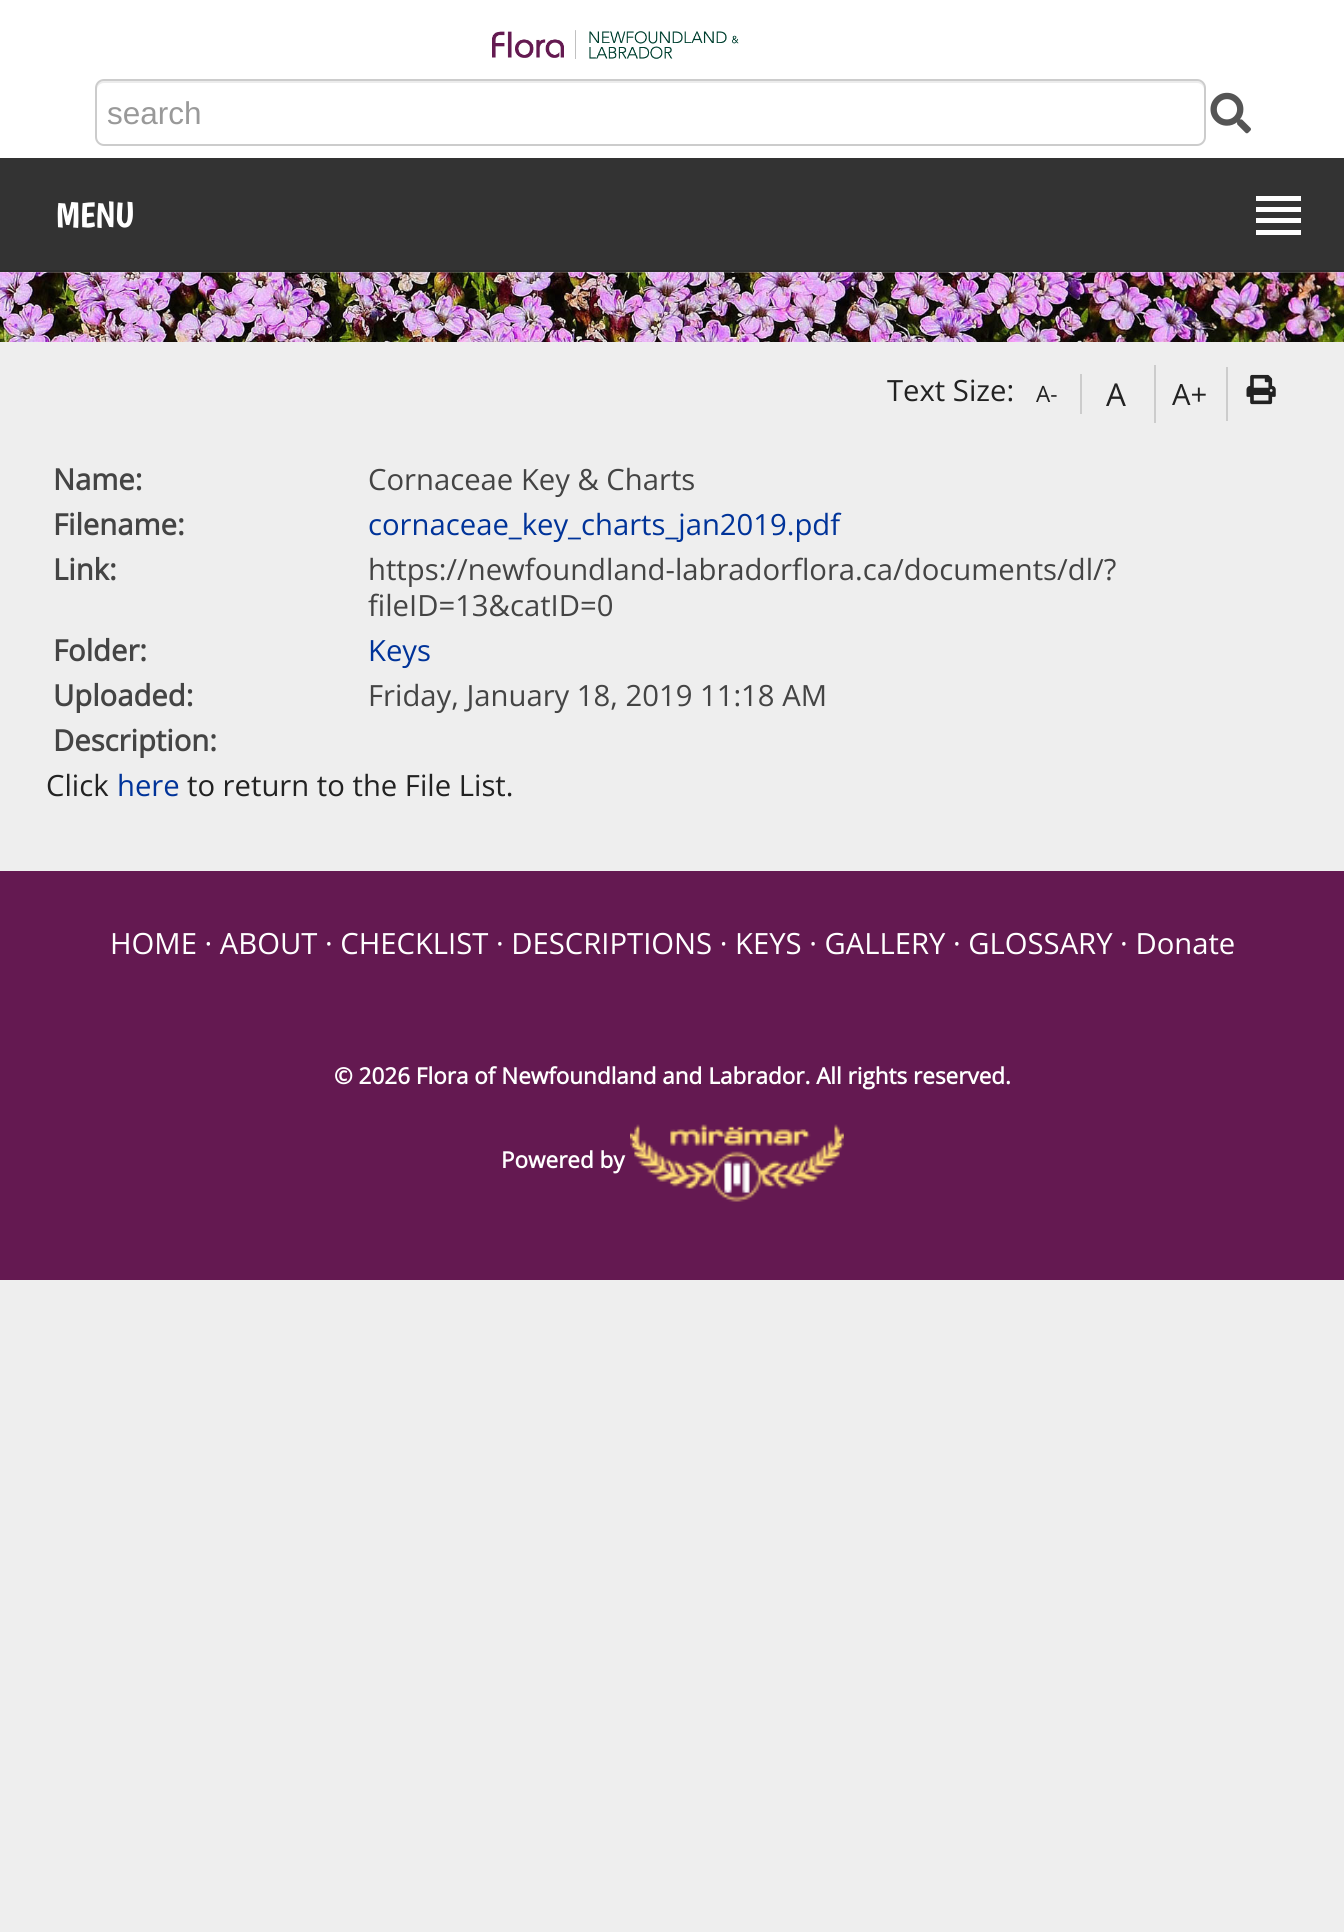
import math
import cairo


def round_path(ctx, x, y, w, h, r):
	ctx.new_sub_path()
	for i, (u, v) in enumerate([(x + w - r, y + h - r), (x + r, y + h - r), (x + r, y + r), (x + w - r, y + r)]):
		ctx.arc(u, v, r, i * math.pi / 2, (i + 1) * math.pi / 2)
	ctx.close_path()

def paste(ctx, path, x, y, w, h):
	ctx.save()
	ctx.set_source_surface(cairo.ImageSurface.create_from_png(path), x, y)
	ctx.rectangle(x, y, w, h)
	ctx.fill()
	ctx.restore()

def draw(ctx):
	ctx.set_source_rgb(0.933, 0.933, 0.933)
	ctx.paint()
	ctx.set_source_rgb(1, 1, 1)
	ctx.rectangle(0, 0, 1344, 158)
	ctx.fill()
	paste(ctx, 'media/1.png', 492, 30, 247, 29)
	ctx.set_source_rgb(0.925, 0.925, 0.925)
	ctx.new_path()
	ctx.move_to(104, 83)
	ctx.line_to(1197, 83)
	ctx.curve_to(1201, 83, 1204, 86, 1204, 90)
	ctx.line_to(1204, 88)
	ctx.curve_to(1204, 84, 1201, 81, 1197, 81)
	ctx.line_to(104, 81)
	ctx.curve_to(100, 81, 97, 84, 97, 88)
	ctx.line_to(97, 90)
	ctx.curve_to(97, 86, 100, 83, 104, 83)
	ctx.close_path()
	ctx.fill()
	round_path(ctx, 96, 80, 1109, 65, 8)
	ctx.set_source_rgb(0.8, 0.8, 0.8)
	ctx.stroke()
	ctx.select_font_face('Liberation Sans')
	ctx.set_font_size(31.5)
	ctx.set_source_rgb(0.6, 0.6, 0.6)
	ctx.move_to(107, 124)
	ctx.show_text('search')
	paste(ctx, 'media/2.png', 1210, 92, 41, 42)
	ctx.set_source_rgb(0.2, 0.2, 0.2)
	ctx.rectangle(0, 158, 1344, 112)
	ctx.fill()
	ctx.set_source_rgb(0.18, 0.18, 0.18)
	ctx.rectangle(0, 270, 1344, 2)
	ctx.fill()
	ctx.select_font_face('Boogaloo')
	ctx.set_font_size(36)
	ctx.set_source_rgb(1, 1, 1)
	ctx.move_to(56, 227)
	ctx.show_text('MENU')
	ctx.rectangle(1256, 196, 45, 5)
	ctx.rectangle(1256, 207, 45, 5)
	ctx.rectangle(1256, 218, 45, 5)
	ctx.rectangle(1256, 230, 45, 5)
	ctx.fill()
	paste(ctx, 'media/3.png', 0, 272, 1344, 70)
	ctx.select_font_face('Open Sans')
	ctx.set_font_size(29.25)
	ctx.set_source_rgb(0.133, 0.133, 0.133)
	ctx.move_to(887, 401)
	ctx.show_text('Text Size:')
	ctx.set_source_rgb(0.8, 0.8, 0.8)
	ctx.rectangle(1080, 374, 2, 40)
	ctx.fill()
	ctx.set_font_size(22.5)
	ctx.set_source_rgb(0.133, 0.133, 0.133)
	ctx.move_to(1036, 402)
	ctx.show_text('A-')
	ctx.set_source_rgb(0.8, 0.8, 0.8)
	ctx.rectangle(1154, 365, 2, 58)
	ctx.fill()
	ctx.set_font_size(31.5)
	ctx.set_source_rgb(0.133, 0.133, 0.133)
	ctx.move_to(1106, 406)
	ctx.show_text('A')
	ctx.set_source_rgb(0.8, 0.8, 0.8)
	ctx.rectangle(1226, 367, 2, 54)
	ctx.fill()
	ctx.set_font_size(29.25)
	ctx.set_source_rgb(0.133, 0.133, 0.133)
	ctx.move_to(1172, 405)
	ctx.show_text('A+')
	paste(ctx, 'media/4.png', 1246, 374, 30, 31)
	ctx.select_font_face('Open Sans', cairo.FONT_SLANT_NORMAL, cairo.FONT_WEIGHT_BOLD)
	ctx.set_source_rgb(0.267, 0.267, 0.267)
	ctx.move_to(53, 490)
	ctx.show_text('Name:')
	ctx.select_font_face('Open Sans')
	ctx.move_to(368, 490)
	ctx.show_text('Cornaceae Key & Charts')
	ctx.select_font_face('Open Sans', cairo.FONT_SLANT_NORMAL, cairo.FONT_WEIGHT_BOLD)
	ctx.move_to(53, 535)
	ctx.show_text('Filename:')
	ctx.select_font_face('Open Sans')
	ctx.set_source_rgb(0, 0.2, 0.6)
	ctx.move_to(368, 535)
	ctx.show_text('cornaceae_key_charts_jan2019.pdf')
	ctx.select_font_face('Open Sans', cairo.FONT_SLANT_NORMAL, cairo.FONT_WEIGHT_BOLD)
	ctx.set_source_rgb(0.267, 0.267, 0.267)
	ctx.move_to(53, 580)
	ctx.show_text('Link:')
	ctx.select_font_face('Open Sans')
	ctx.move_to(368, 580)
	ctx.show_text('https://newfoundland-labradorflora.ca/documents/dl/?')
	ctx.move_to(368, 616)
	ctx.show_text('fileID=13&catID=0')
	ctx.select_font_face('Open Sans', cairo.FONT_SLANT_NORMAL, cairo.FONT_WEIGHT_BOLD)
	ctx.move_to(53, 661)
	ctx.show_text('Folder:')
	ctx.select_font_face('Open Sans')
	ctx.set_source_rgb(0, 0.2, 0.6)
	ctx.move_to(368, 661)
	ctx.show_text('Keys')
	ctx.select_font_face('Open Sans', cairo.FONT_SLANT_NORMAL, cairo.FONT_WEIGHT_BOLD)
	ctx.set_source_rgb(0.267, 0.267, 0.267)
	ctx.move_to(53, 706)
	ctx.show_text('Uploaded:')
	ctx.select_font_face('Open Sans')
	ctx.move_to(368, 706)
	ctx.show_text('Friday, January 18, 2019 11:18 AM')
	ctx.select_font_face('Open Sans', cairo.FONT_SLANT_NORMAL, cairo.FONT_WEIGHT_BOLD)
	ctx.move_to(53, 751)
	ctx.show_text('Description:')
	ctx.select_font_face('Open Sans')
	ctx.set_source_rgb(0.133, 0.133, 0.133)
	ctx.move_to(46, 796)
	ctx.show_text('Click')
	ctx.set_source_rgb(0, 0.2, 0.6)
	ctx.move_to(117, 796)
	ctx.show_text('here')
	ctx.set_source_rgb(0.133, 0.133, 0.133)
	ctx.move_to(187, 796)
	ctx.show_text('to return to the File List.')
	ctx.set_source_rgb(0.392, 0.098, 0.318)
	ctx.rectangle(0, 871, 1344, 409)
	ctx.fill()
	ctx.set_source_rgb(1, 1, 1)
	ctx.move_to(110, 954)
	ctx.show_text('HOME · ABOUT · CHECKLIST · DESCRIPTIONS · KEYS · GALLERY · GLOSSARY · Donate')
	ctx.select_font_face('Open Sans', cairo.FONT_SLANT_NORMAL, cairo.FONT_WEIGHT_BOLD)
	ctx.set_font_size(22.5)
	ctx.move_to(334, 1084)
	ctx.show_text('© 2026 Flora of Newfoundland and Labrador. All rights reserved.')
	ctx.move_to(501, 1168)
	ctx.show_text('Powered by')
	paste(ctx, 'media/5.png', 630, 1124, 214, 78)


surface = cairo.ImageSurface(cairo.FORMAT_RGB24, 1344, 1932)
ctx = cairo.Context(surface)
options = cairo.FontOptions()
options.set_hint_metrics(cairo.HINT_METRICS_OFF)
options.set_hint_style(cairo.HINT_STYLE_NONE)
ctx.set_font_options(options)
ctx.set_miter_limit(4)
draw(ctx)
surface.write_to_png('image.png')
